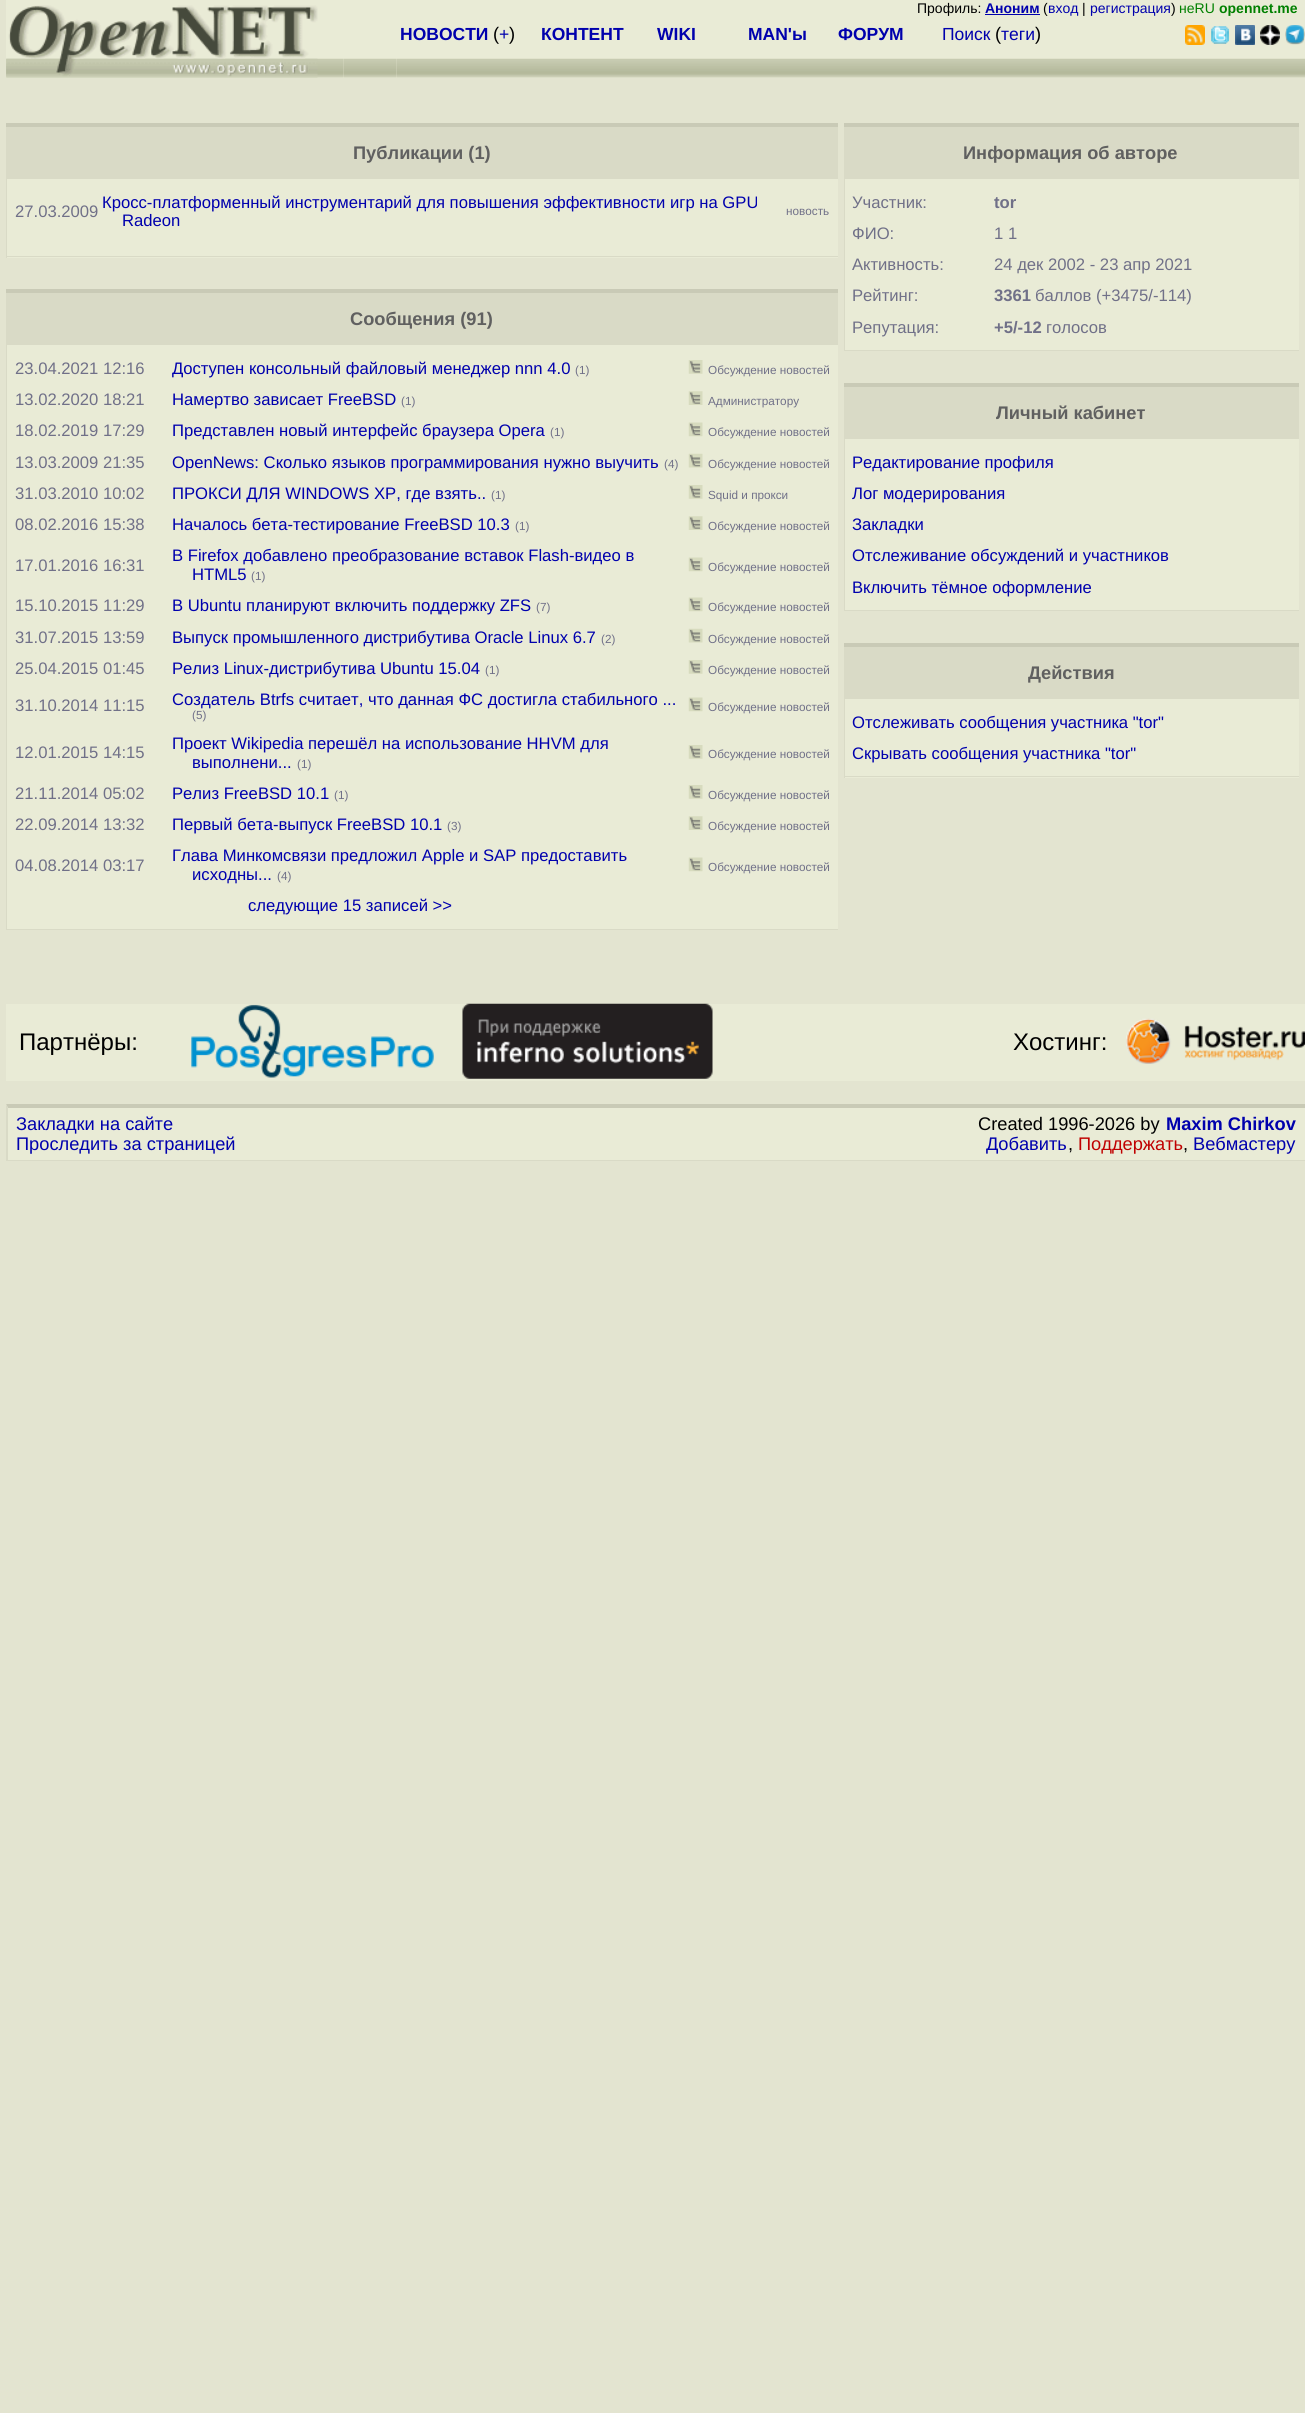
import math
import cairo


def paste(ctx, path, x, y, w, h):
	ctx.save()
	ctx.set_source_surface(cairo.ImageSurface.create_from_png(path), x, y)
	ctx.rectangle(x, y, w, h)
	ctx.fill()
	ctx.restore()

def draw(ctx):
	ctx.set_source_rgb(0.89, 0.894, 0.816)
	ctx.paint()
	ctx.set_source_rgb(0.914, 0.918, 0.839)
	ctx.rectangle(6, 0, 1299, 3)
	ctx.fill()
	ctx.rectangle(6, 3, 1299, 75)
	ctx.fill()
	ctx.select_font_face('Liberation Sans')
	ctx.set_font_size(14)
	ctx.set_source_rgb(0, 0, 0)
	ctx.move_to(917, 13)
	ctx.show_text('Профиль:')
	ctx.select_font_face('Liberation Sans', cairo.FONT_SLANT_NORMAL, cairo.FONT_WEIGHT_BOLD)
	ctx.set_source_rgb(0, 0, 0.678)
	ctx.move_to(985, 13)
	ctx.show_text('Аноним')
	ctx.rectangle(985, 14, 55, 1)
	ctx.fill()
	ctx.select_font_face('Liberation Sans')
	ctx.set_source_rgb(0, 0, 0)
	ctx.move_to(1043, 13)
	ctx.show_text('(')
	ctx.set_source_rgb(0, 0, 0.678)
	ctx.move_to(1048, 13)
	ctx.show_text('вход')
	ctx.set_source_rgb(0, 0, 0)
	ctx.move_to(1082, 13)
	ctx.show_text('|')
	ctx.set_source_rgb(0, 0, 0.678)
	ctx.move_to(1090, 13)
	ctx.show_text('регистрация')
	ctx.set_source_rgb(0, 0, 0)
	ctx.move_to(1171, 13)
	ctx.show_text(')')
	ctx.set_source_rgb(0, 0.502, 0)
	ctx.move_to(1179, 13)
	ctx.show_text('неRU')
	ctx.select_font_face('Liberation Sans', cairo.FONT_SLANT_NORMAL, cairo.FONT_WEIGHT_BOLD)
	ctx.move_to(1219, 13)
	ctx.show_text('opennet.me')
	paste(ctx, 'media/1.png', 6, 58, 338, 20)
	paste(ctx, 'media/2.png', 6, 5, 312, 73)
	paste(ctx, 'media/3.png', 396, 58, 649, 20)
	ctx.set_font_size(17.5)
	ctx.set_source_rgb(0, 0, 0.678)
	ctx.move_to(400, 40)
	ctx.show_text('НОВОСТИ')
	ctx.select_font_face('Liberation Sans')
	ctx.set_font_size(18.25)
	ctx.set_source_rgb(0, 0, 0)
	ctx.move_to(493, 40)
	ctx.show_text('(')
	ctx.set_font_size(17.5)
	ctx.set_source_rgb(0, 0, 0.678)
	ctx.move_to(499, 40)
	ctx.show_text('+')
	ctx.set_font_size(18.25)
	ctx.set_source_rgb(0, 0, 0)
	ctx.move_to(509, 40)
	ctx.show_text(')')
	ctx.select_font_face('Liberation Sans', cairo.FONT_SLANT_NORMAL, cairo.FONT_WEIGHT_BOLD)
	ctx.set_font_size(17.5)
	ctx.set_source_rgb(0, 0, 0.678)
	for x, y, s in [
		(541, 40, 'КОНТЕНТ'),
		(657, 40, 'WIKI'),
		(748, 40, 'MAN\'ы'),
		(838, 40, 'ФОРУМ'),
	]:
		ctx.move_to(x, y)
		ctx.show_text(s)
	ctx.select_font_face('Liberation Sans')
	ctx.move_to(942, 40)
	ctx.show_text('Поиск')
	ctx.set_font_size(18.25)
	ctx.set_source_rgb(0, 0, 0)
	ctx.move_to(995, 40)
	ctx.show_text('(')
	ctx.set_font_size(17.5)
	ctx.set_source_rgb(0, 0, 0.678)
	ctx.move_to(1001, 40)
	ctx.show_text('теги')
	ctx.set_font_size(18.25)
	ctx.set_source_rgb(0, 0, 0)
	ctx.move_to(1035, 40)
	ctx.show_text(')')
	paste(ctx, 'media/4.png', 1045, 58, 260, 20)
	paste(ctx, 'media/5.png', 1185, 25, 20, 20)
	paste(ctx, 'media/6.png', 1211, 26, 18, 18)
	paste(ctx, 'media/7.png', 1235, 25, 20, 20)
	paste(ctx, 'media/8.png', 1260, 25, 20, 20)
	paste(ctx, 'media/9.png', 1285, 25, 20, 20)
	paste(ctx, 'media/10.png', 344, 58, 52, 20)
	ctx.set_source_rgb(0.851, 0.855, 0.776)
	ctx.rectangle(6, 127, 832, 52)
	ctx.fill()
	ctx.set_source_rgb(0.788, 0.792, 0.714)
	ctx.rectangle(6, 123, 832, 4)
	ctx.fill()
	ctx.select_font_face('Liberation Sans', cairo.FONT_SLANT_NORMAL, cairo.FONT_WEIGHT_BOLD)
	ctx.set_source_rgb(0.376, 0.376, 0.376)
	ctx.move_to(353, 159)
	ctx.show_text('Публикации (1)')
	ctx.set_source_rgb(0.914, 0.918, 0.839)
	ctx.rectangle(7, 179, 831, 79)
	ctx.fill()
	ctx.set_source_rgb(0.851, 0.855, 0.776)
	ctx.rectangle(6, 256, 832, 1)
	ctx.rectangle(6, 179, 1, 79)
	ctx.fill()
	ctx.select_font_face('Liberation Sans')
	ctx.set_font_size(16.65)
	ctx.set_source_rgb(0.439, 0.439, 0.533)
	ctx.move_to(15, 217)
	ctx.show_text('27.03.2009')
	ctx.set_source_rgb(0, 0, 0.678)
	ctx.move_to(102, 208)
	ctx.show_text('Кросс-платформенный инструментарий для повышения эффективности игр на GPU')
	ctx.move_to(122, 226)
	ctx.show_text('Radeon')
	ctx.set_font_size(11.75)
	ctx.set_source_rgb(0.439, 0.439, 0.533)
	ctx.move_to(786, 215)
	ctx.show_text('новость')
	ctx.set_source_rgb(0.851, 0.855, 0.776)
	ctx.rectangle(6, 293, 832, 52)
	ctx.fill()
	ctx.set_source_rgb(0.788, 0.792, 0.714)
	ctx.rectangle(6, 289, 832, 4)
	ctx.fill()
	ctx.select_font_face('Liberation Sans', cairo.FONT_SLANT_NORMAL, cairo.FONT_WEIGHT_BOLD)
	ctx.set_font_size(18.25)
	ctx.set_source_rgb(0.376, 0.376, 0.376)
	ctx.move_to(350, 325)
	ctx.show_text('Сообщения (91)')
	ctx.set_source_rgb(0.914, 0.918, 0.839)
	ctx.rectangle(7, 345, 831, 584)
	ctx.fill()
	ctx.set_source_rgb(0.851, 0.855, 0.776)
	ctx.rectangle(6, 929, 832, 1)
	ctx.rectangle(6, 345, 1, 585)
	ctx.fill()
	ctx.select_font_face('Liberation Sans')
	ctx.set_font_size(16.65)
	ctx.set_source_rgb(0.439, 0.439, 0.533)
	ctx.move_to(15, 374)
	ctx.show_text('23.04.2021 12:16')
	ctx.set_source_rgb(0, 0, 0.678)
	ctx.move_to(172, 374)
	ctx.show_text('Доступен консольный файловый менеджер nnn 4.0')
	ctx.set_font_size(11.75)
	ctx.set_source_rgb(0.439, 0.439, 0.533)
	ctx.move_to(575, 374)
	ctx.show_text('(1)')
	paste(ctx, 'media/11.png', 688, 360, 15, 14)
	ctx.move_to(708, 374)
	ctx.show_text('Обсуждение новостей')
	ctx.set_font_size(16.65)
	ctx.move_to(15, 405)
	ctx.show_text('13.02.2020 18:21')
	ctx.set_source_rgb(0, 0, 0.678)
	ctx.move_to(172, 405)
	ctx.show_text('Намертво зависает FreeBSD')
	ctx.set_font_size(11.75)
	ctx.set_source_rgb(0.439, 0.439, 0.533)
	ctx.move_to(401, 405)
	ctx.show_text('(1)')
	paste(ctx, 'media/12.png', 688, 391, 15, 14)
	ctx.move_to(708, 405)
	ctx.show_text('Администратору')
	ctx.set_font_size(16.65)
	ctx.move_to(15, 436)
	ctx.show_text('18.02.2019 17:29')
	ctx.set_source_rgb(0, 0, 0.678)
	ctx.move_to(172, 436)
	ctx.show_text('Представлен новый интерфейс браузера Opera')
	ctx.set_font_size(11.75)
	ctx.set_source_rgb(0.439, 0.439, 0.533)
	ctx.move_to(550, 436)
	ctx.show_text('(1)')
	paste(ctx, 'media/13.png', 688, 422, 15, 15)
	ctx.move_to(708, 436)
	ctx.show_text('Обсуждение новостей')
	ctx.set_font_size(16.65)
	ctx.move_to(15, 468)
	ctx.show_text('13.03.2009 21:35')
	ctx.set_source_rgb(0, 0, 0.678)
	ctx.move_to(172, 468)
	ctx.show_text('OpenNews: Сколько языков программирования нужно выучить')
	ctx.set_font_size(11.75)
	ctx.set_source_rgb(0.439, 0.439, 0.533)
	ctx.move_to(664, 468)
	ctx.show_text('(4)')
	paste(ctx, 'media/14.png', 688, 453, 15, 15)
	ctx.move_to(708, 468)
	ctx.show_text('Обсуждение новостей')
	ctx.set_font_size(16.65)
	ctx.move_to(15, 499)
	ctx.show_text('31.03.2010 10:02')
	ctx.set_source_rgb(0, 0, 0.678)
	ctx.move_to(172, 499)
	ctx.show_text('ПРОКСИ ДЛЯ WINDOWS XP, где взять..')
	ctx.set_font_size(11.75)
	ctx.set_source_rgb(0.439, 0.439, 0.533)
	ctx.move_to(491, 499)
	ctx.show_text('(1)')
	paste(ctx, 'media/11.png', 688, 485, 15, 14)
	ctx.move_to(708, 499)
	ctx.show_text('Squid и прокси')
	ctx.set_font_size(16.65)
	ctx.move_to(15, 530)
	ctx.show_text('08.02.2016 15:38')
	ctx.set_source_rgb(0, 0, 0.678)
	ctx.move_to(172, 530)
	ctx.show_text('Началось бета-тестирование FreeBSD 10.3')
	ctx.set_font_size(11.75)
	ctx.set_source_rgb(0.439, 0.439, 0.533)
	ctx.move_to(515, 530)
	ctx.show_text('(1)')
	paste(ctx, 'media/12.png', 688, 516, 15, 14)
	ctx.move_to(708, 530)
	ctx.show_text('Обсуждение новостей')
	ctx.set_font_size(16.65)
	ctx.move_to(15, 571)
	ctx.show_text('17.01.2016 16:31')
	ctx.set_source_rgb(0, 0, 0.678)
	ctx.move_to(172, 561)
	ctx.show_text('В Firefox добавлено преобразование вставок Flash-видео в')
	ctx.move_to(192, 580)
	ctx.show_text('HTML5')
	ctx.set_font_size(11.75)
	ctx.set_source_rgb(0.439, 0.439, 0.533)
	ctx.move_to(251, 580)
	ctx.show_text('(1)')
	paste(ctx, 'media/13.png', 688, 557, 15, 15)
	ctx.move_to(708, 571)
	ctx.show_text('Обсуждение новостей')
	ctx.set_font_size(16.65)
	ctx.move_to(15, 611)
	ctx.show_text('15.10.2015 11:29')
	ctx.set_source_rgb(0, 0, 0.678)
	ctx.move_to(172, 611)
	ctx.show_text('В Ubuntu планируют включить поддержку ZFS')
	ctx.set_font_size(11.75)
	ctx.set_source_rgb(0.439, 0.439, 0.533)
	ctx.move_to(536, 611)
	ctx.show_text('(7)')
	paste(ctx, 'media/13.png', 688, 597, 15, 15)
	ctx.move_to(708, 611)
	ctx.show_text('Обсуждение новостей')
	ctx.set_font_size(16.65)
	ctx.move_to(15, 643)
	ctx.show_text('31.07.2015 13:59')
	ctx.set_source_rgb(0, 0, 0.678)
	ctx.move_to(172, 643)
	ctx.show_text('Выпуск промышленного дистрибутива Oracle Linux 6.7')
	ctx.set_font_size(11.75)
	ctx.set_source_rgb(0.439, 0.439, 0.533)
	ctx.move_to(601, 643)
	ctx.show_text('(2)')
	paste(ctx, 'media/14.png', 688, 628, 15, 15)
	ctx.move_to(708, 643)
	ctx.show_text('Обсуждение новостей')
	ctx.set_font_size(16.65)
	ctx.move_to(15, 674)
	ctx.show_text('25.04.2015 01:45')
	ctx.set_source_rgb(0, 0, 0.678)
	ctx.move_to(172, 674)
	ctx.show_text('Релиз Linux-дистрибутива Ubuntu 15.04')
	ctx.set_font_size(11.75)
	ctx.set_source_rgb(0.439, 0.439, 0.533)
	ctx.move_to(485, 674)
	ctx.show_text('(1)')
	paste(ctx, 'media/11.png', 688, 660, 15, 14)
	ctx.move_to(708, 674)
	ctx.show_text('Обсуждение новостей')
	ctx.set_font_size(16.65)
	ctx.move_to(15, 711)
	ctx.show_text('31.10.2014 11:15')
	ctx.set_source_rgb(0, 0, 0.678)
	ctx.move_to(172, 705)
	ctx.show_text('Создатель Btrfs считает, что данная ФС достигла стабильного ...')
	ctx.set_font_size(11.75)
	ctx.set_source_rgb(0.439, 0.439, 0.533)
	ctx.move_to(192, 719)
	ctx.show_text('(5)')
	paste(ctx, 'media/13.png', 688, 697, 15, 15)
	ctx.move_to(708, 711)
	ctx.show_text('Обсуждение новостей')
	ctx.set_font_size(16.65)
	ctx.move_to(15, 758)
	ctx.show_text('12.01.2015 14:15')
	ctx.set_source_rgb(0, 0, 0.678)
	ctx.move_to(172, 749)
	ctx.show_text('Проект Wikipedia перешёл на использование HHVM для')
	ctx.move_to(192, 768)
	ctx.show_text('выполнени...')
	ctx.set_font_size(11.75)
	ctx.set_source_rgb(0.439, 0.439, 0.533)
	ctx.move_to(297, 768)
	ctx.show_text('(1)')
	paste(ctx, 'media/11.png', 688, 745, 15, 14)
	ctx.move_to(708, 758)
	ctx.show_text('Обсуждение новостей')
	ctx.set_font_size(16.65)
	ctx.move_to(15, 799)
	ctx.show_text('21.11.2014 05:02')
	ctx.set_source_rgb(0, 0, 0.678)
	ctx.move_to(172, 799)
	ctx.show_text('Релиз FreeBSD 10.1')
	ctx.set_font_size(11.75)
	ctx.set_source_rgb(0.439, 0.439, 0.533)
	ctx.move_to(334, 799)
	ctx.show_text('(1)')
	paste(ctx, 'media/11.png', 688, 785, 15, 14)
	ctx.move_to(708, 799)
	ctx.show_text('Обсуждение новостей')
	ctx.set_font_size(16.65)
	ctx.move_to(15, 830)
	ctx.show_text('22.09.2014 13:32')
	ctx.set_source_rgb(0, 0, 0.678)
	ctx.move_to(172, 830)
	ctx.show_text('Первый бета-выпуск FreeBSD 10.1')
	ctx.set_font_size(11.75)
	ctx.set_source_rgb(0.439, 0.439, 0.533)
	ctx.move_to(447, 830)
	ctx.show_text('(3)')
	paste(ctx, 'media/12.png', 688, 816, 15, 14)
	ctx.move_to(708, 830)
	ctx.show_text('Обсуждение новостей')
	ctx.set_font_size(16.65)
	ctx.move_to(15, 871)
	ctx.show_text('04.08.2014 03:17')
	ctx.set_source_rgb(0, 0, 0.678)
	ctx.move_to(172, 861)
	ctx.show_text('Глава Минкомсвязи предложил Apple и SAP предоставить')
	ctx.move_to(192, 880)
	ctx.show_text('исходны...')
	ctx.set_font_size(11.75)
	ctx.set_source_rgb(0.439, 0.439, 0.533)
	ctx.move_to(277, 880)
	ctx.show_text('(4)')
	paste(ctx, 'media/13.png', 688, 857, 15, 15)
	ctx.move_to(708, 871)
	ctx.show_text('Обсуждение новостей')
	ctx.set_font_size(16.65)
	ctx.set_source_rgb(0, 0, 0.678)
	ctx.move_to(248, 911)
	ctx.show_text('следующие 15 записей >>')
	ctx.set_source_rgb(0.851, 0.855, 0.776)
	ctx.rectangle(844, 127, 455, 52)
	ctx.fill()
	ctx.set_source_rgb(0.788, 0.792, 0.714)
	ctx.rectangle(844, 123, 455, 4)
	ctx.fill()
	ctx.select_font_face('Liberation Sans', cairo.FONT_SLANT_NORMAL, cairo.FONT_WEIGHT_BOLD)
	ctx.set_font_size(18.25)
	ctx.set_source_rgb(0.376, 0.376, 0.376)
	ctx.move_to(963, 159)
	ctx.show_text('Информация об авторе')
	ctx.set_source_rgb(0.914, 0.918, 0.839)
	ctx.rectangle(845, 179, 454, 171)
	ctx.fill()
	ctx.set_source_rgb(0.851, 0.855, 0.776)
	ctx.rectangle(844, 350, 455, 1)
	ctx.rectangle(844, 179, 1, 172)
	ctx.fill()
	ctx.select_font_face('Liberation Sans')
	ctx.set_font_size(16.65)
	ctx.set_source_rgb(0.439, 0.439, 0.533)
	ctx.move_to(852, 208)
	ctx.show_text('Участник:')
	ctx.select_font_face('Liberation Sans', cairo.FONT_SLANT_NORMAL, cairo.FONT_WEIGHT_BOLD)
	ctx.move_to(994, 208)
	ctx.show_text('tor')
	ctx.select_font_face('Liberation Sans')
	for x, y, s in [
		(852, 239, 'ФИО:'),
		(994, 239, '1 1'),
		(852, 270, 'Активность:'),
		(994, 270, '24 дек 2002 - 23 апр 2021'),
		(852, 301, 'Рейтинг:'),
	]:
		ctx.move_to(x, y)
		ctx.show_text(s)
	ctx.select_font_face('Liberation Sans', cairo.FONT_SLANT_NORMAL, cairo.FONT_WEIGHT_BOLD)
	ctx.move_to(994, 301)
	ctx.show_text('3361')
	ctx.select_font_face('Liberation Sans')
	ctx.move_to(1035, 301)
	ctx.show_text('баллов (+3475/-114)')
	ctx.move_to(852, 333)
	ctx.show_text('Репутация:')
	ctx.select_font_face('Liberation Sans', cairo.FONT_SLANT_NORMAL, cairo.FONT_WEIGHT_BOLD)
	ctx.move_to(994, 333)
	ctx.show_text('+5/-12')
	ctx.select_font_face('Liberation Sans')
	ctx.move_to(1046, 333)
	ctx.show_text('голосов')
	ctx.set_source_rgb(0.851, 0.855, 0.776)
	ctx.rectangle(844, 387, 455, 52)
	ctx.fill()
	ctx.set_source_rgb(0.788, 0.792, 0.714)
	ctx.rectangle(844, 383, 455, 4)
	ctx.fill()
	ctx.select_font_face('Liberation Sans', cairo.FONT_SLANT_NORMAL, cairo.FONT_WEIGHT_BOLD)
	ctx.set_font_size(18.25)
	ctx.set_source_rgb(0.376, 0.376, 0.376)
	ctx.move_to(996, 419)
	ctx.show_text('Личный кабинет')
	ctx.set_source_rgb(0.914, 0.918, 0.839)
	ctx.rectangle(845, 439, 454, 171)
	ctx.fill()
	ctx.set_source_rgb(0.851, 0.855, 0.776)
	ctx.rectangle(844, 610, 455, 1)
	ctx.rectangle(844, 439, 1, 172)
	ctx.fill()
	ctx.select_font_face('Liberation Sans')
	ctx.set_font_size(16.65)
	ctx.set_source_rgb(0, 0, 0.678)
	for x, y, s in [
		(852, 468, 'Редактирование профиля'),
		(852, 499, 'Лог модерирования'),
		(852, 530, 'Закладки'),
		(852, 561, 'Отслеживание обсуждений и участников'),
		(852, 593, 'Включить тёмное оформление'),
	]:
		ctx.move_to(x, y)
		ctx.show_text(s)
	ctx.set_source_rgb(0.851, 0.855, 0.776)
	ctx.rectangle(844, 647, 455, 52)
	ctx.fill()
	ctx.set_source_rgb(0.788, 0.792, 0.714)
	ctx.rectangle(844, 643, 455, 4)
	ctx.fill()
	ctx.select_font_face('Liberation Sans', cairo.FONT_SLANT_NORMAL, cairo.FONT_WEIGHT_BOLD)
	ctx.set_font_size(18.25)
	ctx.set_source_rgb(0.376, 0.376, 0.376)
	ctx.move_to(1028, 679)
	ctx.show_text('Действия')
	ctx.set_source_rgb(0.914, 0.918, 0.839)
	ctx.rectangle(845, 699, 454, 79)
	ctx.fill()
	ctx.set_source_rgb(0.851, 0.855, 0.776)
	ctx.rectangle(844, 776, 455, 1)
	ctx.rectangle(844, 699, 1, 79)
	ctx.fill()
	ctx.select_font_face('Liberation Sans')
	ctx.set_font_size(16.65)
	ctx.set_source_rgb(0, 0, 0.678)
	ctx.move_to(852, 728)
	ctx.show_text('Отслеживать сообщения участника "tor"')
	ctx.move_to(852, 759)
	ctx.show_text('Скрывать сообщения участника "tor"')
	ctx.set_source_rgb(0.914, 0.918, 0.839)
	ctx.rectangle(6, 1004, 1299, 77)
	ctx.fill()
	ctx.set_font_size(24)
	ctx.set_source_rgb(0, 0, 0)
	ctx.move_to(19, 1050)
	ctx.show_text('Партнёры:')
	paste(ctx, 'media/15.png', 191, 1004, 243, 74)
	paste(ctx, 'media/16.png', 462, 1003, 251, 76)
	ctx.move_to(1013, 1050)
	ctx.show_text('Хостинг:')
	paste(ctx, 'media/17.png', 1126, 1018, 179, 46)
	ctx.set_source_rgb(0.914, 0.918, 0.839)
	ctx.rectangle(6, 1104, 1299, 56)
	ctx.fill()
	ctx.set_source_rgb(0.788, 0.792, 0.714)
	ctx.new_path()
	ctx.move_to(6, 1104)
	ctx.line_to(1305, 1104)
	ctx.line_to(1305, 1108)
	ctx.line_to(8, 1108)
	ctx.close_path()
	ctx.fill()
	ctx.set_source_rgb(0.851, 0.855, 0.776)
	ctx.rectangle(6, 1160, 1299, 1)
	ctx.fill()
	ctx.new_path()
	ctx.move_to(6, 1161)
	ctx.line_to(6, 1104)
	ctx.line_to(8, 1108)
	ctx.line_to(8, 1160)
	ctx.close_path()
	ctx.fill()
	ctx.set_font_size(18.25)
	ctx.set_source_rgb(0, 0, 0.678)
	ctx.move_to(16, 1130)
	ctx.show_text('Закладки на сайте')
	ctx.move_to(16, 1150)
	ctx.show_text('Проследить за страницей')
	ctx.set_source_rgb(0, 0, 0)
	ctx.move_to(978, 1130)
	ctx.show_text('Created 1996-2026 by')
	ctx.select_font_face('Liberation Sans', cairo.FONT_SLANT_NORMAL, cairo.FONT_WEIGHT_BOLD)
	ctx.set_source_rgb(0, 0, 0.678)
	ctx.move_to(1166, 1130)
	ctx.show_text('Maxim Chirkov')
	ctx.select_font_face('Liberation Sans')
	ctx.move_to(986, 1150)
	ctx.show_text('Добавить')
	ctx.set_source_rgb(0, 0, 0)
	ctx.move_to(1068, 1150)
	ctx.show_text(',')
	ctx.set_source_rgb(0.753, 0, 0)
	ctx.move_to(1078, 1150)
	ctx.show_text('Поддержать')
	ctx.set_source_rgb(0, 0, 0)
	ctx.move_to(1183, 1150)
	ctx.show_text(',')
	ctx.set_source_rgb(0, 0, 0.678)
	ctx.move_to(1193, 1150)
	ctx.show_text('Вебмастеру')


surface = cairo.ImageSurface(cairo.FORMAT_RGB24, 1305, 2413)
ctx = cairo.Context(surface)
options = cairo.FontOptions()
options.set_hint_metrics(cairo.HINT_METRICS_OFF)
options.set_hint_style(cairo.HINT_STYLE_NONE)
ctx.set_font_options(options)
ctx.set_miter_limit(4)
draw(ctx)
surface.write_to_png('image.png')
